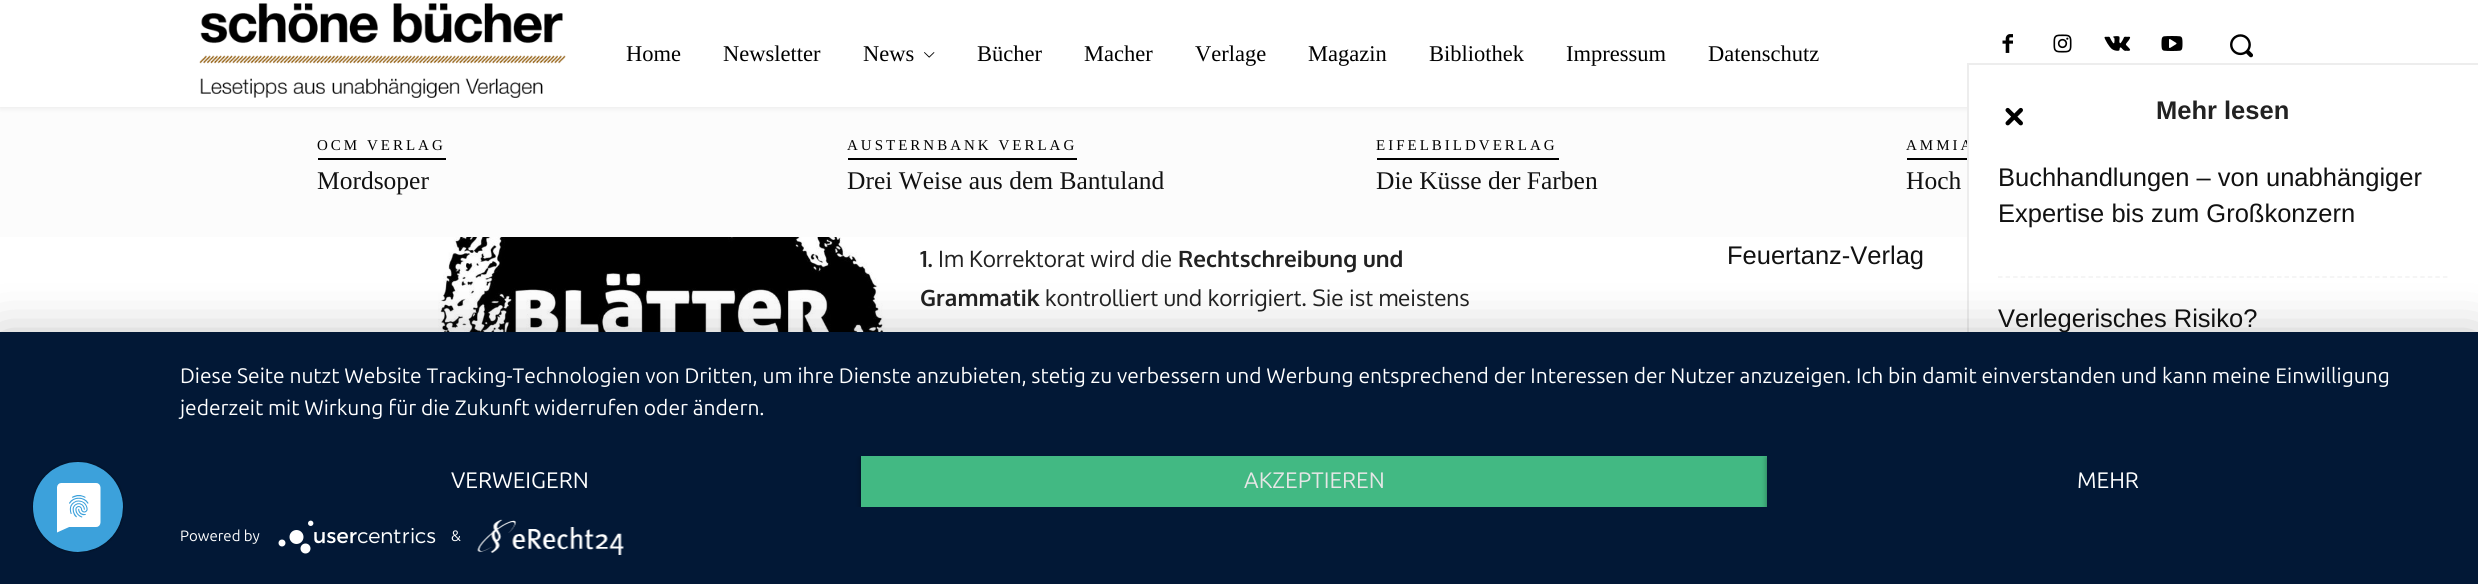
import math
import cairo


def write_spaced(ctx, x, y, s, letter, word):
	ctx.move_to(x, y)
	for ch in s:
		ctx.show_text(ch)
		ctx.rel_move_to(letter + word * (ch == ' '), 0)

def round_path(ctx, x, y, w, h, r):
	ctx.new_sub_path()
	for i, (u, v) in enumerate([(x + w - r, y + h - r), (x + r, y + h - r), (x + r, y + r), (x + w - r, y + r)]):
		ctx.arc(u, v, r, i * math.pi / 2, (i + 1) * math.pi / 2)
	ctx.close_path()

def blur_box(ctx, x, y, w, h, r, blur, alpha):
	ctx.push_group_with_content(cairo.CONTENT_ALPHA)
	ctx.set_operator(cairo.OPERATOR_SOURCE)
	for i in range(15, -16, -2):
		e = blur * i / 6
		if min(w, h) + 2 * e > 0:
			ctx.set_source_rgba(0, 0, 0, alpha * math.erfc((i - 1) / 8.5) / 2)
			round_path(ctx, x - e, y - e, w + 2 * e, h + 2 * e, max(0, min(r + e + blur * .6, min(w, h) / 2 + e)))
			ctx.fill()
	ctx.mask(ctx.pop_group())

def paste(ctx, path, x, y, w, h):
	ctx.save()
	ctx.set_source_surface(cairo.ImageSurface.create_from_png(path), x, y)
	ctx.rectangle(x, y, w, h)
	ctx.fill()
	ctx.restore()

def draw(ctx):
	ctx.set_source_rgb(1, 1, 1)
	ctx.paint()
	paste(ctx, 'media/1.png', 199, 3, 367, 95)
	paste(ctx, 'media/3.png', 2002, 34, 11, 19)
	paste(ctx, 'media/4.png', 2053, 34, 19, 19)
	paste(ctx, 'media/5.png', 2104, 36, 27, 15)
	paste(ctx, 'media/6.png', 2161, 36, 22, 15)
	ctx.set_source_rgb(0.988, 0.988, 0.988)
	ctx.rectangle(0, 107, 1967, 130)
	ctx.fill()
	ctx.save()
	ctx.set_fill_rule(cairo.FILL_RULE_EVEN_ODD)
	ctx.new_path()
	ctx.move_to(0, 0)
	ctx.line_to(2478, 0)
	ctx.line_to(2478, 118)
	ctx.line_to(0, 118)
	ctx.close_path()
	ctx.move_to(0, 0)
	ctx.line_to(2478, 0)
	ctx.line_to(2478, 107)
	ctx.line_to(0, 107)
	ctx.close_path()
	ctx.clip()
	ctx.set_source_rgb(0, 0, 0)
	blur_box(ctx, 0, 2, 2478, 106, 0, 3, 0.08)
	ctx.restore()
	ctx.select_font_face('Liberation Serif')
	ctx.set_font_size(22.5)
	ctx.set_source_rgb(0, 0, 0)
	for x, y, s in [
		(626, 61, 'Home'),
		(723, 61, 'Newsletter'),
		(863, 61, 'News'),
	]:
		ctx.move_to(x, y)
		ctx.show_text(s)
	paste(ctx, 'media/2.png', 924, 52, 11, 6)
	for x, y, s in [
		(977, 61, 'Bücher'),
		(1084, 61, 'Macher'),
		(1195, 61, 'Verlage'),
		(1308, 61, 'Magazin'),
		(1429, 61, 'Bibliothek'),
		(1566, 61, 'Impressum'),
		(1708, 61, 'Datenschutz'),
	]:
		ctx.move_to(x, y)
		ctx.show_text(s)
	paste(ctx, 'media/7.png', 2230, 34, 23, 24)
	ctx.rectangle(318, 158, 128, 2)
	ctx.fill()
	ctx.set_font_size(15)
	write_spaced(ctx, 317, 150, 'OCM VERLAG', 3, 0)
	ctx.set_font_size(25.5)
	ctx.set_source_rgb(0.067, 0.067, 0.067)
	ctx.move_to(317, 189)
	ctx.show_text('Mordsoper')
	ctx.set_source_rgb(0, 0, 0)
	ctx.rectangle(848, 158, 229, 2)
	ctx.fill()
	ctx.set_font_size(15)
	write_spaced(ctx, 847, 150, 'AUSTERNBANK VERLAG', 3, 0)
	ctx.set_font_size(25.5)
	ctx.set_source_rgb(0.067, 0.067, 0.067)
	ctx.move_to(847, 189)
	ctx.show_text('Drei Weise aus dem Bantuland')
	ctx.set_source_rgb(0, 0, 0)
	ctx.rectangle(1377, 158, 182, 2)
	ctx.fill()
	ctx.set_font_size(15)
	write_spaced(ctx, 1376, 150, 'EIFELBILDVERLAG', 3, 0)
	ctx.set_font_size(25.5)
	ctx.set_source_rgb(0.067, 0.067, 0.067)
	ctx.move_to(1376, 189)
	ctx.show_text('Die Küsse der Farben')
	ctx.set_source_rgb(0, 0, 0)
	ctx.rectangle(1907, 158, 60, 2)
	ctx.fill()
	ctx.set_font_size(15)
	write_spaced(ctx, 1906, 150, 'AMMIA', 3, 0)
	ctx.set_font_size(25.5)
	ctx.set_source_rgb(0.067, 0.067, 0.067)
	ctx.move_to(1906, 189)
	ctx.show_text('Hoch')
	paste(ctx, 'media/8.png', 438, 237, 450, 95)
	ctx.select_font_face('Oxygen', cairo.FONT_SLANT_NORMAL, cairo.FONT_WEIGHT_BOLD)
	ctx.set_font_size(22.5)
	ctx.set_source_rgb(0.133, 0.133, 0.133)
	ctx.move_to(920, 267)
	ctx.show_text('1.')
	ctx.select_font_face('Oxygen')
	ctx.move_to(938, 267)
	ctx.show_text('Im Korrektorat wird die')
	ctx.select_font_face('Oxygen', cairo.FONT_SLANT_NORMAL, cairo.FONT_WEIGHT_BOLD)
	ctx.move_to(1178, 267)
	ctx.show_text('Rechtschreibung und')
	ctx.move_to(920, 306)
	ctx.show_text('Grammatik')
	ctx.select_font_face('Oxygen')
	ctx.move_to(1045, 306)
	ctx.show_text('kontrolliert und korrigiert. Sie ist meistens')
	ctx.select_font_face('Liberation Sans')
	ctx.set_font_size(25.5)
	ctx.set_source_rgb(0.067, 0.067, 0.067)
	ctx.move_to(1727, 264)
	ctx.show_text('Feuertanz-Verlag')
	ctx.set_source_rgb(1, 1, 1)
	ctx.rectangle(1969, 106, 509, 44)
	ctx.fill()
	ctx.set_source_rgb(0.929, 0.929, 0.929)
	ctx.rectangle(1967, 63, 511, 2)
	ctx.rectangle(1967, 63, 2, 269)
	ctx.fill()
	paste(ctx, 'media/9.png', 2005, 107, 18, 19)
	ctx.select_font_face('Liberation Sans', cairo.FONT_SLANT_NORMAL, cairo.FONT_WEIGHT_BOLD)
	ctx.set_source_rgb(0.133, 0.133, 0.133)
	ctx.move_to(2156, 119)
	ctx.show_text('Mehr lesen')
	ctx.new_path()
	ctx.move_to(1998, 277)
	ctx.line_to(2448, 277)
	ctx.set_source_rgb(0.949, 0.949, 0.949)
	ctx.set_line_width(1.5)
	ctx.set_dash([4.5, 3.04])
	ctx.stroke()
	ctx.select_font_face('Liberation Sans')
	ctx.set_source_rgb(0.067, 0.067, 0.067)
	for x, y, s in [
		(1998, 186, 'Buchhandlungen – von unabhängiger'),
		(1998, 222, 'Expertise bis zum Großkonzern'),
		(1998, 327, 'Verlegerisches Risiko?'),
	]:
		ctx.move_to(x, y)
		ctx.show_text(s)
	ctx.set_source_rgb(0, 0, 0)
	blur_box(ctx, 0, 341, 2478, 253, 0, 27, 0.3)
	ctx.set_source_rgb(0.008, 0.094, 0.212)
	ctx.rectangle(0, 332, 2478, 252)
	ctx.fill()
	paste(ctx, 'media/10.png', 32, 461, 92, 92)
	ctx.select_font_face('Ubuntu')
	ctx.set_font_size(21)
	ctx.set_source_rgb(1, 1, 1)
	ctx.move_to(180, 383)
	ctx.show_text('Diese Seite nutzt Website Tracking-Technologien von Dritten, um ihre Dienste anzubieten, stetig zu verbessern und Werbung entsprechend der Interessen der Nutzer anzuzeigen. Ich bin damit einverstanden und kann meine Einwilligung')
	ctx.move_to(180, 415)
	ctx.show_text('jederzeit mit Wirkung für die Zukunft widerrufen oder ändern.')
	ctx.set_font_size(22.5)
	ctx.move_to(451, 488)
	ctx.show_text('VERWEIGERN')
	ctx.save()
	ctx.rectangle(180, 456, 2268, 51)
	ctx.clip()
	ctx.set_source_rgb(0, 0, 0)
	blur_box(ctx, 861, 458, 906, 51, 0, 3, 0.4)
	ctx.restore()
	ctx.set_source_rgb(0.259, 0.725, 0.514)
	ctx.rectangle(861, 456, 906, 51)
	ctx.fill()
	ctx.set_source_rgb(0.902, 0.902, 0.902)
	ctx.move_to(1244, 488)
	ctx.show_text('AKZEPTIEREN')
	ctx.save()
	ctx.rectangle(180, 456, 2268, 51)
	ctx.clip()
	ctx.set_source_rgb(0, 0, 0)
	blur_box(ctx, 1767, 458, 681, 51, 0, 3, 0.4)
	ctx.restore()
	ctx.set_source_rgb(0.008, 0.094, 0.212)
	ctx.rectangle(1767, 456, 681, 51)
	ctx.fill()
	ctx.set_source_rgb(1, 1, 1)
	ctx.move_to(2077, 488)
	ctx.show_text('MEHR')
	ctx.set_font_size(15)
	ctx.move_to(180, 541)
	ctx.show_text('Powered by')
	paste(ctx, 'media/11.png', 278, 520, 158, 34)
	ctx.move_to(451, 541)
	ctx.show_text('&')
	paste(ctx, 'media/12.png', 477, 519, 147, 36)


surface = cairo.ImageSurface(cairo.FORMAT_RGB24, 2478, 584)
ctx = cairo.Context(surface)
options = cairo.FontOptions()
options.set_hint_metrics(cairo.HINT_METRICS_OFF)
options.set_hint_style(cairo.HINT_STYLE_NONE)
ctx.set_font_options(options)
ctx.set_miter_limit(4)
draw(ctx)
surface.write_to_png('image.png')
